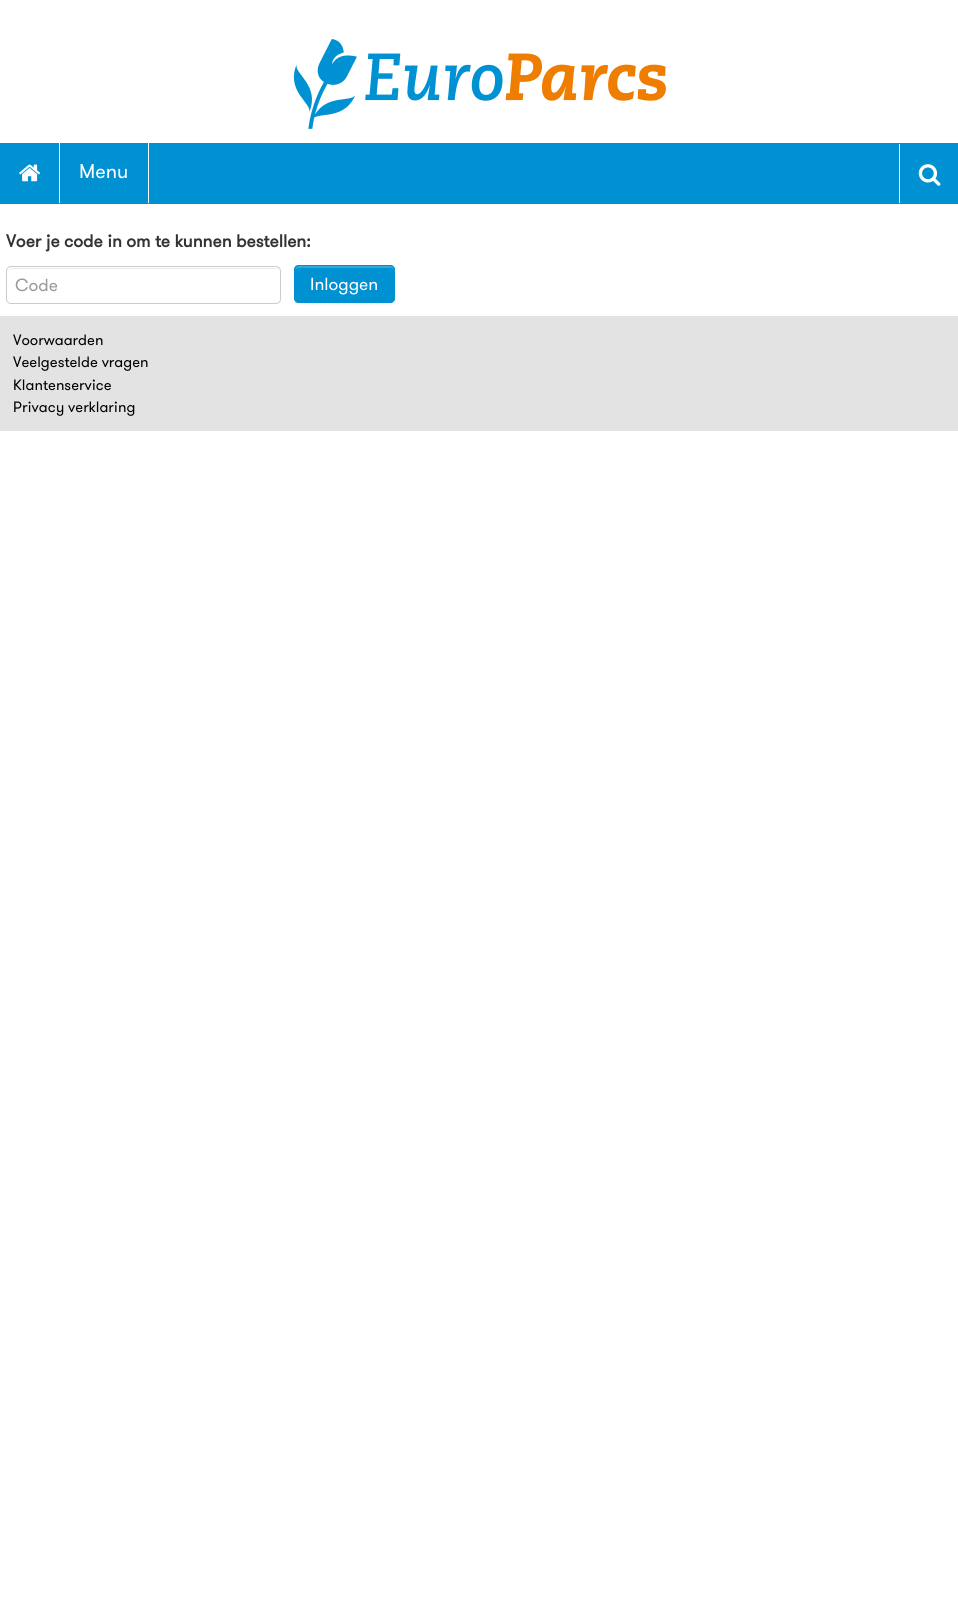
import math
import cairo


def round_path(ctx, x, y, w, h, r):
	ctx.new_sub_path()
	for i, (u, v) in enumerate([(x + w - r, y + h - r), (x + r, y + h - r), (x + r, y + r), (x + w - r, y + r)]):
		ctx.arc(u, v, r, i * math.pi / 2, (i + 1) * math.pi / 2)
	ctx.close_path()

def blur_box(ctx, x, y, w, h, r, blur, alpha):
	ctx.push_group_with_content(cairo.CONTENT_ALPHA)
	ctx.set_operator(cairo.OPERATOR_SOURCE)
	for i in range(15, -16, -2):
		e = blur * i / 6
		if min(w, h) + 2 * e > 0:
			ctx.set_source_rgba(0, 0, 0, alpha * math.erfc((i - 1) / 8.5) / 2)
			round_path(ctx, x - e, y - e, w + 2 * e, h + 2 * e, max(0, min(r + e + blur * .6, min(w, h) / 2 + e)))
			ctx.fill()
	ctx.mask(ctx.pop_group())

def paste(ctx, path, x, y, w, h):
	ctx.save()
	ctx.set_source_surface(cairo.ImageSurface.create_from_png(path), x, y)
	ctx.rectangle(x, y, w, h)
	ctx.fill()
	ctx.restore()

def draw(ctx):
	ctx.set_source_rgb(1, 1, 1)
	ctx.paint()
	paste(ctx, 'media/1.png', 293, 39, 373, 90)
	ctx.set_source_rgb(0, 0.569, 0.827)
	ctx.rectangle(0, 143, 958, 61)
	ctx.fill()
	ctx.set_source_rgb(1, 1, 1)
	ctx.rectangle(59, 143, 1, 60)
	ctx.fill()
	paste(ctx, 'media/2.png', 19, 164, 21, 18)
	ctx.select_font_face('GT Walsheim')
	ctx.set_font_size(20)
	ctx.move_to(79, 178)
	ctx.show_text('Menu')
	ctx.rectangle(148, 143, 1, 60)
	ctx.fill()
	ctx.rectangle(899, 144, 1, 59)
	ctx.fill()
	paste(ctx, 'media/3.png', 918, 164, 23, 22)
	ctx.select_font_face('GT Walsheim', cairo.FONT_SLANT_NORMAL, cairo.FONT_WEIGHT_BOLD)
	ctx.set_font_size(17.5)
	ctx.set_source_rgb(0.2, 0.2, 0.2)
	ctx.move_to(6, 247)
	ctx.show_text('Voer je code in om te kunnen bestellen:')
	ctx.set_source_rgb(0.925, 0.925, 0.925)
	ctx.new_path()
	ctx.move_to(11, 269)
	ctx.line_to(277, 269)
	ctx.line_to(280, 271)
	ctx.line_to(280, 272)
	ctx.curve_to(280, 270, 278, 268, 276, 268)
	ctx.line_to(12, 268)
	ctx.curve_to(11, 268, 9, 269, 9, 270)
	ctx.close_path()
	ctx.fill()
	round_path(ctx, 6.5, 266.5, 274, 37, 4.5)
	ctx.set_source_rgb(0.8, 0.8, 0.8)
	ctx.set_line_width(1)
	ctx.stroke()
	ctx.select_font_face('GT Walsheim')
	ctx.set_source_rgb(0.6, 0.6, 0.6)
	ctx.move_to(15, 291)
	ctx.show_text('Code')
	ctx.set_source_rgb(0, 0, 0)
	blur_box(ctx, 294, 266, 101, 38, 5, 1, 0.05)
	ctx.set_source_rgb(0, 0.569, 0.827)
	round_path(ctx, 294, 265, 101, 38, 5)
	ctx.fill()
	ctx.set_source_rgb(0.2, 0.655, 0.863)
	ctx.new_path()
	ctx.move_to(299, 268)
	ctx.line_to(390, 268)
	ctx.curve_to(392, 268, 394, 269, 394, 271)
	ctx.curve_to(394, 262, 379, 266, 375, 266)
	ctx.line_to(314, 266)
	ctx.curve_to(310, 266, 295, 262, 295, 271)
	ctx.curve_to(295, 269, 297, 268, 299, 268)
	ctx.close_path()
	ctx.fill()
	round_path(ctx, 294.5, 265.5, 100, 37, 4.5)
	ctx.set_source_rgb(0, 0.569, 0.827)
	ctx.stroke()
	ctx.set_source_rgb(1, 1, 1)
	ctx.move_to(310, 290)
	ctx.show_text('Inloggen')
	ctx.set_source_rgb(0.89, 0.89, 0.89)
	ctx.rectangle(0, 316, 958, 115)
	ctx.fill()
	ctx.set_font_size(15)
	ctx.set_source_rgb(0, 0, 0)
	for x, y, s in [
		(13, 345, 'Voorwaarden'),
		(13, 367, 'Veelgestelde vragen'),
		(13, 390, 'Klantenservice'),
		(13, 412, 'Privacy verklaring'),
	]:
		ctx.move_to(x, y)
		ctx.show_text(s)


surface = cairo.ImageSurface(cairo.FORMAT_RGB24, 958, 1619)
ctx = cairo.Context(surface)
options = cairo.FontOptions()
options.set_hint_metrics(cairo.HINT_METRICS_OFF)
options.set_hint_style(cairo.HINT_STYLE_NONE)
ctx.set_font_options(options)
ctx.set_miter_limit(4)
draw(ctx)
surface.write_to_png('image.png')
